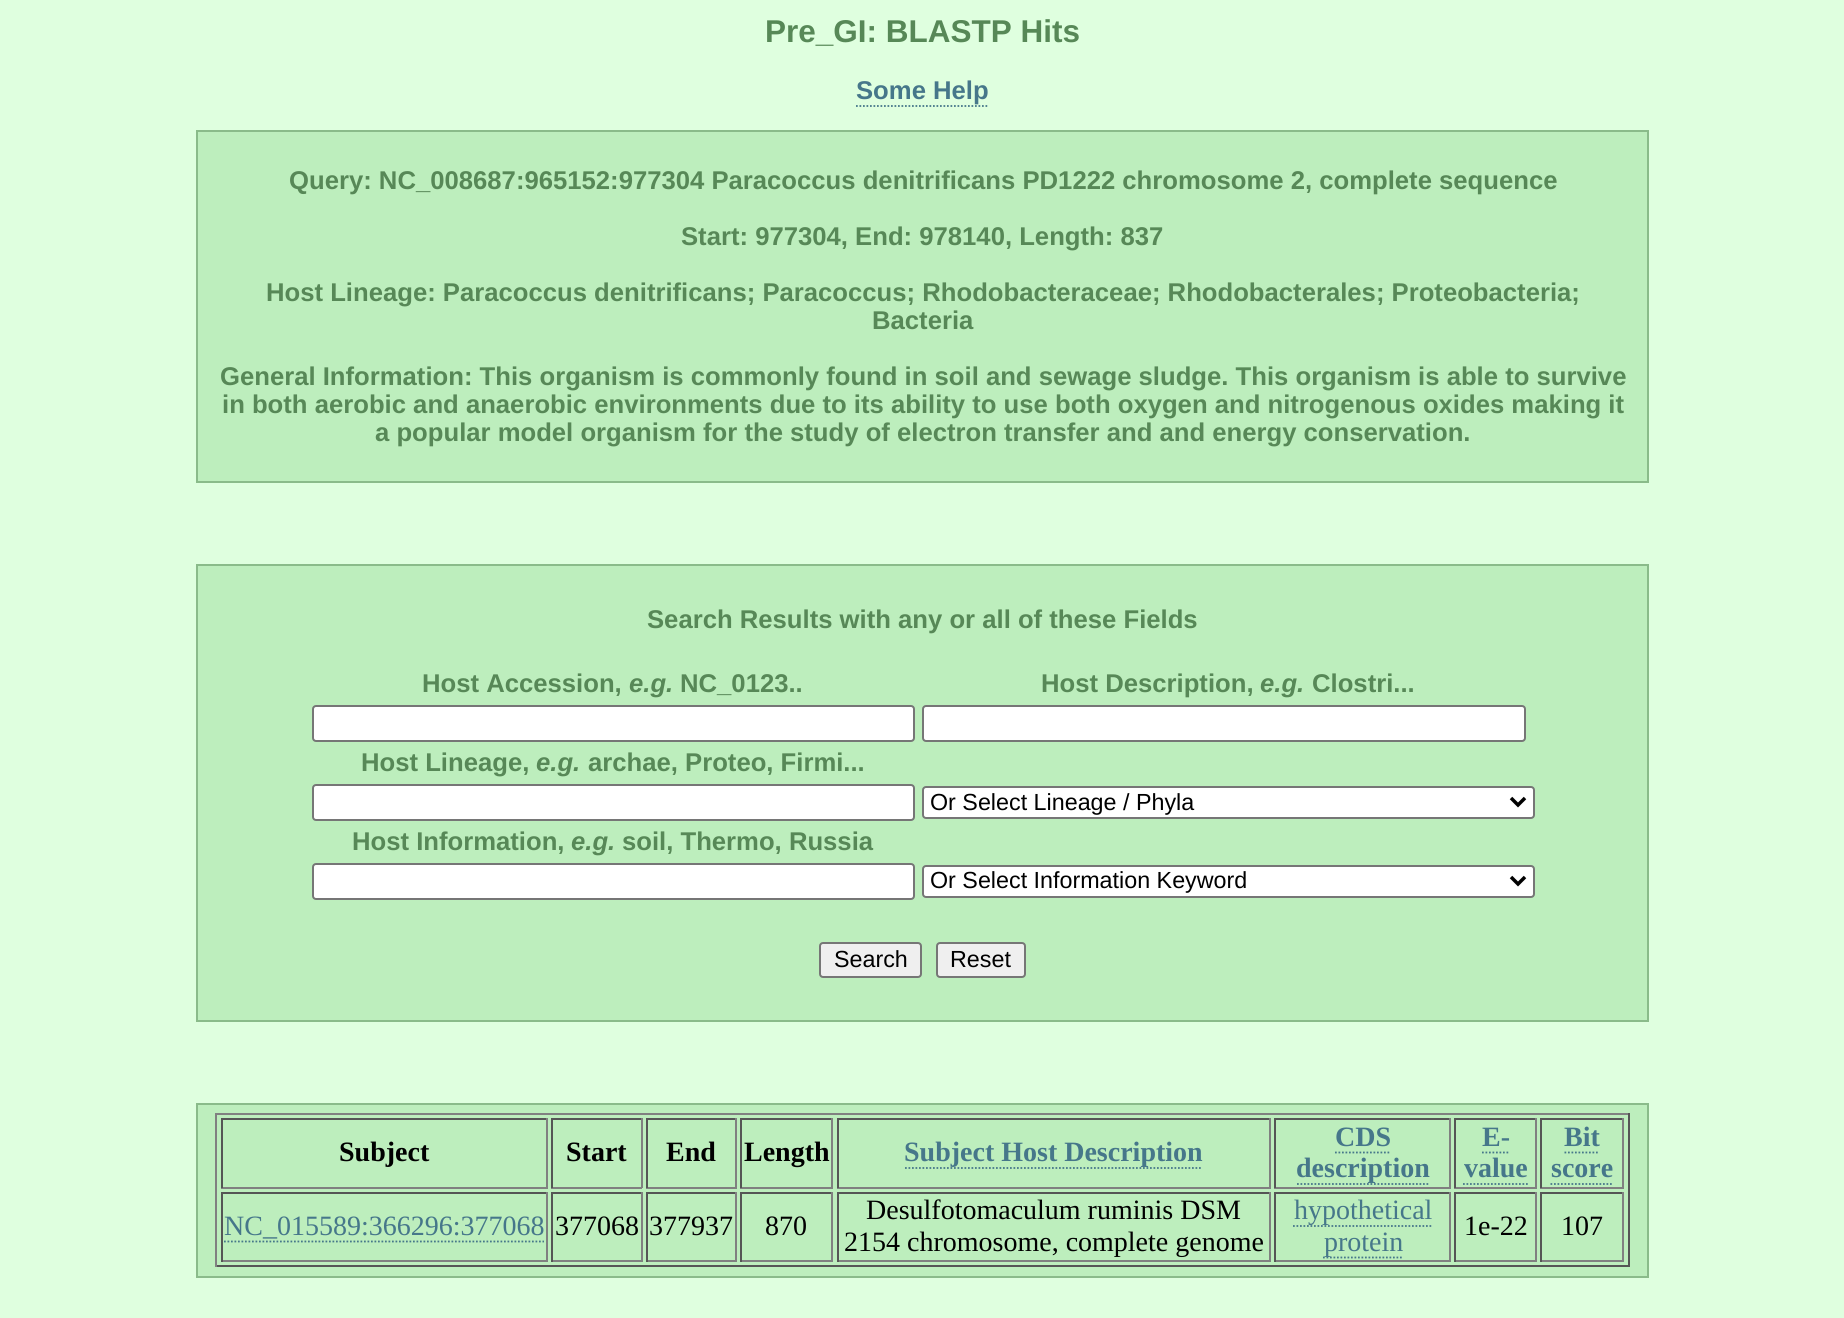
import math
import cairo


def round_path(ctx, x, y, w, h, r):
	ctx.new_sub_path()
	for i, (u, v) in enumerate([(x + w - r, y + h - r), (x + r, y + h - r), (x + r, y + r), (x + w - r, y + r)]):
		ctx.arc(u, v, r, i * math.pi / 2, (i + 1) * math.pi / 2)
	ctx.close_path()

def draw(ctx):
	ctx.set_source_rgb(0.875, 1, 0.875)
	ctx.paint()
	ctx.select_font_face('Liberation Sans', cairo.FONT_SLANT_NORMAL, cairo.FONT_WEIGHT_BOLD)
	ctx.set_font_size(31.5)
	ctx.set_source_rgb(0.341, 0.533, 0.341)
	ctx.move_to(765, 42)
	ctx.show_text('Pre_GI: BLASTP Hits')
	ctx.set_font_size(25.67)
	ctx.set_source_rgb(0.275, 0.467, 0.541)
	ctx.move_to(856, 99)
	ctx.show_text('Some Help')
	ctx.new_path()
	ctx.move_to(856, 106)
	ctx.line_to(989, 106)
	ctx.set_line_width(1.8)
	ctx.set_dash([1.75, 1.75])
	ctx.stroke()
	ctx.set_source_rgb(0.741, 0.933, 0.741)
	ctx.rectangle(197, 131, 1451, 351)
	ctx.fill_preserve()
	ctx.set_source_rgb(0.541, 0.733, 0.541)
	ctx.set_line_width(2)
	ctx.set_dash([])
	ctx.stroke()
	ctx.set_source_rgb(0.341, 0.533, 0.341)
	for x, y, s in [
		(289, 189, 'Query: NC_008687:965152:977304 Paracoccus denitrificans PD1222 chromosome 2, complete sequence'),
		(681, 245, 'Start: 977304, End: 978140, Length: 837'),
		(266, 301, 'Host Lineage: Paracoccus denitrificans; Paracoccus; Rhodobacteraceae; Rhodobacterales; Proteobacteria;'),
		(872, 329, 'Bacteria'),
		(220, 385, 'General Information: This organism is commonly found in soil and sewage sludge. This organism is able to survive'),
		(222, 413, 'in both aerobic and anaerobic environments due to its ability to use both oxygen and nitrogenous oxides making it'),
		(375, 441, 'a popular model organism for the study of electron transfer and and energy conservation.'),
	]:
		ctx.move_to(x, y)
		ctx.show_text(s)
	ctx.set_source_rgb(0.741, 0.933, 0.741)
	ctx.rectangle(197, 565, 1451, 456)
	ctx.fill_preserve()
	ctx.set_source_rgb(0.541, 0.733, 0.541)
	ctx.stroke()
	ctx.set_source_rgb(0.341, 0.533, 0.341)
	ctx.move_to(647, 628)
	ctx.show_text('Search Results with any or all of these Fields')
	ctx.move_to(422, 692)
	ctx.show_text('Host Accession,')
	ctx.select_font_face('Liberation Sans', cairo.FONT_SLANT_ITALIC, cairo.FONT_WEIGHT_BOLD)
	ctx.move_to(629, 692)
	ctx.show_text('e.g.')
	ctx.select_font_face('Liberation Sans', cairo.FONT_SLANT_NORMAL, cairo.FONT_WEIGHT_BOLD)
	ctx.move_to(680, 692)
	ctx.show_text('NC_0123..')
	ctx.move_to(1041, 692)
	ctx.show_text('Host Description,')
	ctx.select_font_face('Liberation Sans', cairo.FONT_SLANT_ITALIC, cairo.FONT_WEIGHT_BOLD)
	ctx.move_to(1260, 692)
	ctx.show_text('e.g.')
	ctx.select_font_face('Liberation Sans', cairo.FONT_SLANT_NORMAL, cairo.FONT_WEIGHT_BOLD)
	ctx.move_to(1312, 692)
	ctx.show_text('Clostri...')
	ctx.set_source_rgb(1, 1, 1)
	round_path(ctx, 313, 706, 601, 35, 3)
	ctx.fill_preserve()
	ctx.set_source_rgb(0.463, 0.463, 0.463)
	ctx.stroke()
	ctx.set_source_rgb(1, 1, 1)
	round_path(ctx, 923, 706, 602, 35, 3)
	ctx.fill_preserve()
	ctx.set_source_rgb(0.463, 0.463, 0.463)
	ctx.stroke()
	ctx.set_source_rgb(0.341, 0.533, 0.341)
	ctx.move_to(361, 771)
	ctx.show_text('Host Lineage,')
	ctx.select_font_face('Liberation Sans', cairo.FONT_SLANT_ITALIC, cairo.FONT_WEIGHT_BOLD)
	ctx.move_to(536, 771)
	ctx.show_text('e.g.')
	ctx.select_font_face('Liberation Sans', cairo.FONT_SLANT_NORMAL, cairo.FONT_WEIGHT_BOLD)
	ctx.move_to(588, 771)
	ctx.show_text('archae, Proteo, Firmi...')
	ctx.set_source_rgb(1, 1, 1)
	round_path(ctx, 313, 785, 601, 35, 3)
	ctx.fill_preserve()
	ctx.set_source_rgb(0.463, 0.463, 0.463)
	ctx.stroke()
	ctx.set_source_rgb(1, 1, 1)
	round_path(ctx, 923, 787, 611, 31, 3)
	ctx.fill_preserve()
	ctx.set_source_rgb(0.463, 0.463, 0.463)
	ctx.stroke()
	ctx.new_path()
	ctx.move_to(1511, 798)
	ctx.line_to(1518, 805)
	ctx.line_to(1525, 798)
	ctx.set_source_rgb(0, 0, 0)
	ctx.set_line_width(3.5)
	ctx.stroke()
	ctx.select_font_face('Liberation Sans')
	ctx.set_font_size(23.3)
	ctx.move_to(930, 810)
	ctx.show_text('Or Select Lineage / Phyla')
	ctx.select_font_face('Liberation Sans', cairo.FONT_SLANT_NORMAL, cairo.FONT_WEIGHT_BOLD)
	ctx.set_font_size(25.67)
	ctx.set_source_rgb(0.341, 0.533, 0.341)
	ctx.move_to(352, 850)
	ctx.show_text('Host Information,')
	ctx.select_font_face('Liberation Sans', cairo.FONT_SLANT_ITALIC, cairo.FONT_WEIGHT_BOLD)
	ctx.move_to(571, 850)
	ctx.show_text('e.g.')
	ctx.select_font_face('Liberation Sans', cairo.FONT_SLANT_NORMAL, cairo.FONT_WEIGHT_BOLD)
	ctx.move_to(622, 850)
	ctx.show_text('soil, Thermo, Russia')
	ctx.set_source_rgb(1, 1, 1)
	round_path(ctx, 313, 864, 601, 35, 3)
	ctx.fill_preserve()
	ctx.set_source_rgb(0.463, 0.463, 0.463)
	ctx.set_line_width(2)
	ctx.stroke()
	ctx.set_source_rgb(1, 1, 1)
	round_path(ctx, 923, 866, 611, 31, 3)
	ctx.fill_preserve()
	ctx.set_source_rgb(0.463, 0.463, 0.463)
	ctx.stroke()
	ctx.new_path()
	ctx.move_to(1511, 877)
	ctx.line_to(1518, 884)
	ctx.line_to(1525, 877)
	ctx.set_source_rgb(0, 0, 0)
	ctx.set_line_width(3.5)
	ctx.stroke()
	ctx.select_font_face('Liberation Sans')
	ctx.set_font_size(23.3)
	ctx.move_to(930, 888)
	ctx.show_text('Or Select Information Keyword')
	ctx.set_source_rgb(0.937, 0.937, 0.937)
	round_path(ctx, 820, 943, 101, 34, 3)
	ctx.fill_preserve()
	ctx.set_source_rgb(0.463, 0.463, 0.463)
	ctx.set_line_width(2)
	ctx.stroke()
	ctx.set_source_rgb(0, 0, 0)
	ctx.move_to(834, 967)
	ctx.show_text('Search')
	ctx.set_source_rgb(0.937, 0.937, 0.937)
	round_path(ctx, 937, 943, 88, 34, 3)
	ctx.fill_preserve()
	ctx.set_source_rgb(0.463, 0.463, 0.463)
	ctx.stroke()
	ctx.set_source_rgb(0, 0, 0)
	ctx.move_to(950, 967)
	ctx.show_text('Reset')
	ctx.set_source_rgb(0.741, 0.933, 0.741)
	ctx.rectangle(197, 1104, 1451, 173)
	ctx.fill_preserve()
	ctx.set_source_rgb(0.541, 0.733, 0.541)
	ctx.stroke()
	ctx.set_source_rgb(0.502, 0.502, 0.502)
	ctx.rectangle(215, 1113, 1414, 2)
	ctx.fill()
	ctx.set_source_rgb(0.333, 0.333, 0.333)
	ctx.rectangle(1628, 1113, 2, 154)
	ctx.rectangle(215, 1265, 1414, 2)
	ctx.fill()
	ctx.set_source_rgb(0.502, 0.502, 0.502)
	ctx.rectangle(215, 1113, 2, 154)
	ctx.fill()
	ctx.set_source_rgb(0.333, 0.333, 0.333)
	ctx.rectangle(221, 1118, 327, 2)
	ctx.fill()
	ctx.set_source_rgb(0.502, 0.502, 0.502)
	ctx.rectangle(546, 1118, 2, 70)
	ctx.rectangle(221, 1187, 327, 2)
	ctx.fill()
	ctx.set_source_rgb(0.333, 0.333, 0.333)
	ctx.rectangle(221, 1118, 2, 70)
	ctx.fill()
	ctx.select_font_face('Liberation Serif', cairo.FONT_SLANT_NORMAL, cairo.FONT_WEIGHT_BOLD)
	ctx.set_font_size(28)
	ctx.set_source_rgb(0, 0, 0)
	ctx.move_to(339, 1161)
	ctx.show_text('Subject')
	ctx.set_source_rgb(0.333, 0.333, 0.333)
	ctx.rectangle(551, 1118, 91, 2)
	ctx.fill()
	ctx.set_source_rgb(0.502, 0.502, 0.502)
	ctx.rectangle(641, 1118, 2, 70)
	ctx.rectangle(551, 1187, 91, 2)
	ctx.fill()
	ctx.set_source_rgb(0.333, 0.333, 0.333)
	ctx.rectangle(551, 1118, 2, 70)
	ctx.fill()
	ctx.set_source_rgb(0, 0, 0)
	ctx.move_to(566, 1161)
	ctx.show_text('Start')
	ctx.set_source_rgb(0.333, 0.333, 0.333)
	ctx.rectangle(646, 1118, 91, 2)
	ctx.fill()
	ctx.set_source_rgb(0.502, 0.502, 0.502)
	ctx.rectangle(735, 1118, 2, 70)
	ctx.rectangle(646, 1187, 91, 2)
	ctx.fill()
	ctx.set_source_rgb(0.333, 0.333, 0.333)
	ctx.rectangle(646, 1118, 2, 70)
	ctx.fill()
	ctx.set_source_rgb(0, 0, 0)
	ctx.move_to(666, 1161)
	ctx.show_text('End')
	ctx.set_source_rgb(0.333, 0.333, 0.333)
	ctx.rectangle(740, 1118, 93, 2)
	ctx.fill()
	ctx.set_source_rgb(0.502, 0.502, 0.502)
	ctx.rectangle(831, 1118, 2, 70)
	ctx.rectangle(740, 1187, 93, 2)
	ctx.fill()
	ctx.set_source_rgb(0.333, 0.333, 0.333)
	ctx.rectangle(740, 1118, 2, 70)
	ctx.fill()
	ctx.set_source_rgb(0, 0, 0)
	ctx.move_to(744, 1161)
	ctx.show_text('Length')
	ctx.set_source_rgb(0.333, 0.333, 0.333)
	ctx.rectangle(837, 1118, 434, 2)
	ctx.fill()
	ctx.set_source_rgb(0.502, 0.502, 0.502)
	ctx.rectangle(1269, 1118, 2, 70)
	ctx.rectangle(837, 1187, 434, 2)
	ctx.fill()
	ctx.set_source_rgb(0.333, 0.333, 0.333)
	ctx.rectangle(837, 1118, 2, 70)
	ctx.fill()
	ctx.set_source_rgb(0.275, 0.467, 0.541)
	ctx.move_to(904, 1161)
	ctx.show_text('Subject Host Description')
	ctx.new_path()
	ctx.move_to(905, 1168)
	ctx.line_to(1202, 1168)
	ctx.set_line_width(1.8)
	ctx.set_dash([1.75, 1.75])
	ctx.stroke()
	ctx.set_source_rgb(0.333, 0.333, 0.333)
	ctx.rectangle(1274, 1118, 177, 2)
	ctx.fill()
	ctx.set_source_rgb(0.502, 0.502, 0.502)
	ctx.rectangle(1449, 1118, 2, 70)
	ctx.rectangle(1274, 1187, 177, 2)
	ctx.fill()
	ctx.set_source_rgb(0.333, 0.333, 0.333)
	ctx.rectangle(1274, 1118, 2, 70)
	ctx.fill()
	ctx.set_source_rgb(0.275, 0.467, 0.541)
	ctx.move_to(1335, 1146)
	ctx.show_text('CDS')
	ctx.new_path()
	ctx.move_to(1335, 1152.5)
	ctx.line_to(1391, 1152.5)
	ctx.stroke()
	ctx.move_to(1296, 1177)
	ctx.show_text('description')
	ctx.new_path()
	ctx.move_to(1297, 1184)
	ctx.line_to(1430, 1184)
	ctx.stroke()
	ctx.set_source_rgb(0.333, 0.333, 0.333)
	ctx.rectangle(1454, 1118, 83, 2)
	ctx.fill()
	ctx.set_source_rgb(0.502, 0.502, 0.502)
	ctx.rectangle(1535, 1118, 2, 70)
	ctx.rectangle(1454, 1187, 83, 2)
	ctx.fill()
	ctx.set_source_rgb(0.333, 0.333, 0.333)
	ctx.rectangle(1454, 1118, 2, 70)
	ctx.fill()
	ctx.set_source_rgb(0.275, 0.467, 0.541)
	ctx.move_to(1482, 1146)
	ctx.show_text('E-')
	ctx.move_to(1464, 1177)
	ctx.show_text('value')
	ctx.new_path()
	ctx.move_to(1482, 1152.5)
	ctx.line_to(1510, 1152.5)
	ctx.stroke()
	ctx.new_path()
	ctx.move_to(1463, 1184)
	ctx.line_to(1528, 1184)
	ctx.stroke()
	ctx.set_source_rgb(0.333, 0.333, 0.333)
	ctx.rectangle(1540, 1118, 84, 2)
	ctx.fill()
	ctx.set_source_rgb(0.502, 0.502, 0.502)
	ctx.rectangle(1622, 1118, 2, 70)
	ctx.rectangle(1540, 1187, 84, 2)
	ctx.fill()
	ctx.set_source_rgb(0.333, 0.333, 0.333)
	ctx.rectangle(1540, 1118, 2, 70)
	ctx.fill()
	ctx.set_source_rgb(0.275, 0.467, 0.541)
	ctx.move_to(1564, 1146)
	ctx.show_text('Bit')
	ctx.new_path()
	ctx.move_to(1564.5, 1152.5)
	ctx.line_to(1599.5, 1152.5)
	ctx.move_to(1550.5, 1184)
	ctx.line_to(1613.5, 1184)
	ctx.stroke()
	ctx.move_to(1551, 1177)
	ctx.show_text('score')
	ctx.set_source_rgb(0.333, 0.333, 0.333)
	ctx.rectangle(221, 1192, 327, 2)
	ctx.fill()
	ctx.set_source_rgb(0.502, 0.502, 0.502)
	ctx.rectangle(546, 1192, 2, 70)
	ctx.rectangle(221, 1260, 327, 2)
	ctx.fill()
	ctx.set_source_rgb(0.333, 0.333, 0.333)
	ctx.rectangle(221, 1192, 2, 70)
	ctx.fill()
	ctx.select_font_face('Liberation Serif')
	ctx.set_source_rgb(0.275, 0.467, 0.541)
	ctx.move_to(224, 1235)
	ctx.show_text('NC_015589:366296:377068')
	ctx.new_path()
	ctx.move_to(224, 1241.5)
	ctx.line_to(544, 1241.5)
	ctx.stroke()
	ctx.set_source_rgb(0.333, 0.333, 0.333)
	ctx.rectangle(551, 1192, 91, 2)
	ctx.fill()
	ctx.set_source_rgb(0.502, 0.502, 0.502)
	ctx.rectangle(641, 1192, 2, 70)
	ctx.rectangle(551, 1260, 91, 2)
	ctx.fill()
	ctx.set_source_rgb(0.333, 0.333, 0.333)
	ctx.rectangle(551, 1192, 2, 70)
	ctx.fill()
	ctx.set_source_rgb(0, 0, 0)
	ctx.move_to(555, 1235)
	ctx.show_text('377068')
	ctx.set_source_rgb(0.333, 0.333, 0.333)
	ctx.rectangle(646, 1192, 91, 2)
	ctx.fill()
	ctx.set_source_rgb(0.502, 0.502, 0.502)
	ctx.rectangle(735, 1192, 2, 70)
	ctx.rectangle(646, 1260, 91, 2)
	ctx.fill()
	ctx.set_source_rgb(0.333, 0.333, 0.333)
	ctx.rectangle(646, 1192, 2, 70)
	ctx.fill()
	ctx.set_source_rgb(0, 0, 0)
	ctx.move_to(649, 1235)
	ctx.show_text('377937')
	ctx.set_source_rgb(0.333, 0.333, 0.333)
	ctx.rectangle(740, 1192, 93, 2)
	ctx.fill()
	ctx.set_source_rgb(0.502, 0.502, 0.502)
	ctx.rectangle(831, 1192, 2, 70)
	ctx.rectangle(740, 1260, 93, 2)
	ctx.fill()
	ctx.set_source_rgb(0.333, 0.333, 0.333)
	ctx.rectangle(740, 1192, 2, 70)
	ctx.fill()
	ctx.set_source_rgb(0, 0, 0)
	ctx.move_to(765, 1235)
	ctx.show_text('870')
	ctx.set_source_rgb(0.333, 0.333, 0.333)
	ctx.rectangle(837, 1192, 434, 2)
	ctx.fill()
	ctx.set_source_rgb(0.502, 0.502, 0.502)
	ctx.rectangle(1269, 1192, 2, 70)
	ctx.rectangle(837, 1260, 434, 2)
	ctx.fill()
	ctx.set_source_rgb(0.333, 0.333, 0.333)
	ctx.rectangle(837, 1192, 2, 70)
	ctx.fill()
	ctx.set_source_rgb(0, 0, 0)
	ctx.move_to(866, 1219)
	ctx.show_text('Desulfotomaculum ruminis DSM')
	ctx.move_to(844, 1251)
	ctx.show_text('2154 chromosome, complete genome')
	ctx.set_source_rgb(0.333, 0.333, 0.333)
	ctx.rectangle(1274, 1192, 177, 2)
	ctx.fill()
	ctx.set_source_rgb(0.502, 0.502, 0.502)
	ctx.rectangle(1449, 1192, 2, 70)
	ctx.rectangle(1274, 1260, 177, 2)
	ctx.fill()
	ctx.set_source_rgb(0.333, 0.333, 0.333)
	ctx.rectangle(1274, 1192, 2, 70)
	ctx.fill()
	ctx.new_path()
	ctx.move_to(1293, 1226)
	ctx.line_to(1433, 1226)
	ctx.set_source_rgb(0.275, 0.467, 0.541)
	ctx.stroke()
	ctx.move_to(1294, 1219)
	ctx.show_text('hypothetical')
	ctx.new_path()
	ctx.move_to(1323, 1257.5)
	ctx.line_to(1403.5, 1257.5)
	ctx.stroke()
	ctx.move_to(1324, 1251)
	ctx.show_text('protein')
	ctx.set_source_rgb(0.333, 0.333, 0.333)
	ctx.rectangle(1454, 1192, 83, 2)
	ctx.fill()
	ctx.set_source_rgb(0.502, 0.502, 0.502)
	ctx.rectangle(1535, 1192, 2, 70)
	ctx.rectangle(1454, 1260, 83, 2)
	ctx.fill()
	ctx.set_source_rgb(0.333, 0.333, 0.333)
	ctx.rectangle(1454, 1192, 2, 70)
	ctx.fill()
	ctx.set_source_rgb(0, 0, 0)
	ctx.move_to(1464, 1235)
	ctx.show_text('1e-22')
	ctx.set_source_rgb(0.333, 0.333, 0.333)
	ctx.rectangle(1540, 1192, 84, 2)
	ctx.fill()
	ctx.set_source_rgb(0.502, 0.502, 0.502)
	ctx.rectangle(1622, 1192, 2, 70)
	ctx.rectangle(1540, 1260, 84, 2)
	ctx.fill()
	ctx.set_source_rgb(0.333, 0.333, 0.333)
	ctx.rectangle(1540, 1192, 2, 70)
	ctx.fill()
	ctx.set_source_rgb(0, 0, 0)
	ctx.move_to(1561, 1235)
	ctx.show_text('107')


surface = cairo.ImageSurface(cairo.FORMAT_RGB24, 1844, 1318)
ctx = cairo.Context(surface)
options = cairo.FontOptions()
options.set_hint_metrics(cairo.HINT_METRICS_OFF)
options.set_hint_style(cairo.HINT_STYLE_NONE)
ctx.set_font_options(options)
ctx.set_miter_limit(4)
draw(ctx)
surface.write_to_png('image.png')
